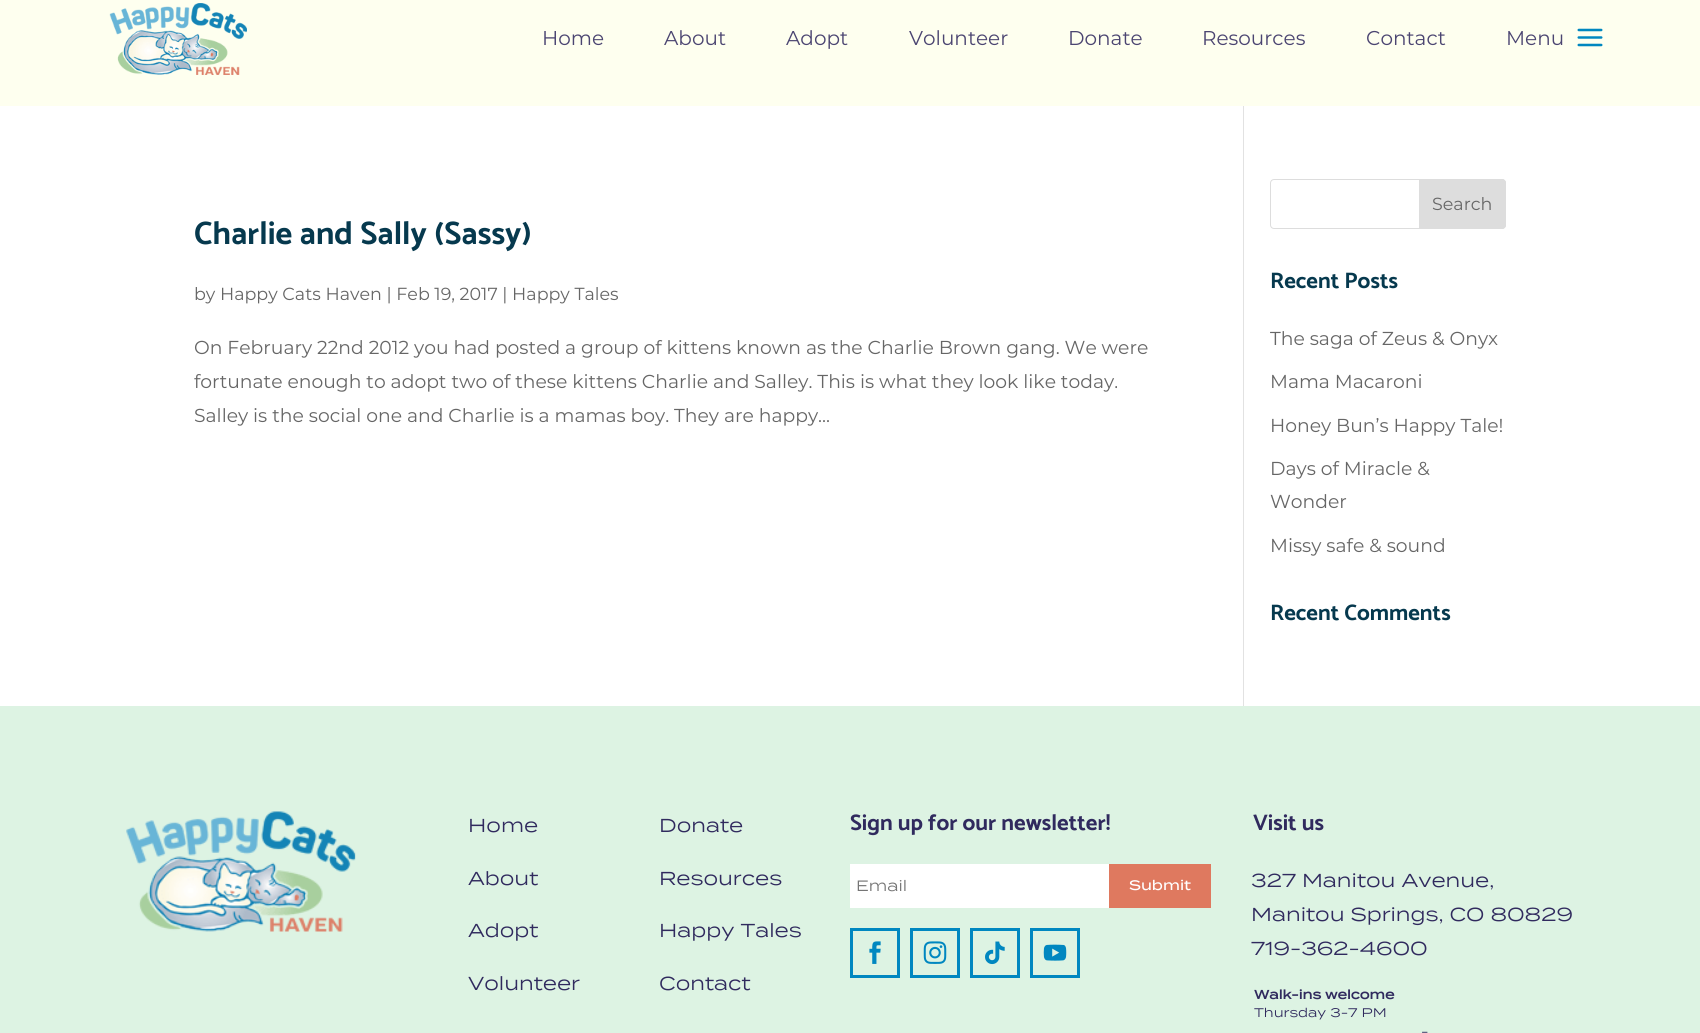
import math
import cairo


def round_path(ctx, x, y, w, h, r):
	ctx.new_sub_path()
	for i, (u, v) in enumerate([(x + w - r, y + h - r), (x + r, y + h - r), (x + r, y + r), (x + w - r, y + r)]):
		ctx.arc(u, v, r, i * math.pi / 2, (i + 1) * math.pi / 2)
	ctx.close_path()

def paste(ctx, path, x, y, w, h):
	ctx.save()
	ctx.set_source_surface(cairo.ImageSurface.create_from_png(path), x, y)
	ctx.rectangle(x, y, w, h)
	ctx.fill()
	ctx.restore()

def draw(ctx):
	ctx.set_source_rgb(1, 1, 1)
	ctx.paint()
	ctx.set_source_rgb(0.996, 1, 0.937)
	ctx.rectangle(0, 0, 1700, 106)
	ctx.fill()
	paste(ctx, 'media/1.png', 109, 3, 138, 72)
	ctx.select_font_face('Montserrat')
	ctx.set_font_size(20)
	ctx.set_source_rgb(0.294, 0.271, 0.443)
	for x, y, s in [
		(542, 45, 'Home'),
		(664, 45, 'About'),
		(786, 45, 'Adopt'),
		(909, 45, 'Volunteer'),
		(1068, 45, 'Donate'),
		(1202, 45, 'Resources'),
		(1366, 45, 'Contact'),
		(1506, 45, 'Menu'),
	]:
		ctx.move_to(x, y)
		ctx.show_text(s)
	paste(ctx, 'media/2.png', 1577, 28, 26, 19)
	ctx.set_source_rgb(0.886, 0.886, 0.886)
	ctx.rectangle(1243, 106, 1, 600)
	ctx.fill()
	ctx.select_font_face('Catamaran', cairo.FONT_SLANT_NORMAL, cairo.FONT_WEIGHT_BOLD)
	ctx.set_font_size(32.5)
	ctx.set_source_rgb(0.027, 0.224, 0.306)
	ctx.move_to(194, 244)
	ctx.show_text('Charlie and Sally (Sassy)')
	ctx.select_font_face('Montserrat')
	ctx.set_font_size(17.5)
	ctx.set_source_rgb(0.4, 0.4, 0.4)
	ctx.move_to(194, 300)
	ctx.show_text('by Happy Cats Haven | Feb 19, 2017 | Happy Tales')
	ctx.set_font_size(18.75)
	for x, y, s in [
		(194, 354, 'On February 22nd 2012 you had posted a group of kittens known as the Charlie Brown gang. We were'),
		(194, 388, 'fortunate enough to adopt two of these kittens Charlie and Salley. This is what they look like today.'),
		(194, 422, 'Salley is the social one and Charlie is a mamas boy. They are happy...'),
	]:
		ctx.move_to(x, y)
		ctx.show_text(s)
	round_path(ctx, 1270.5, 179.5, 235, 49, 3.5)
	ctx.set_source_rgb(0.867, 0.867, 0.867)
	ctx.set_line_width(1)
	ctx.stroke()
	ctx.new_path()
	ctx.move_to(1419.5, 179.5)
	ctx.line_to(1502, 179.5)
	ctx.curve_to(1504, 179.5, 1505.5, 181, 1505.5, 183)
	ctx.line_to(1505.5, 225)
	ctx.curve_to(1505.5, 227, 1504, 228.5, 1502, 228.5)
	ctx.line_to(1419.5, 228.5)
	ctx.close_path()
	ctx.fill_preserve()
	ctx.stroke()
	ctx.set_font_size(17.5)
	ctx.set_source_rgb(0.4, 0.4, 0.4)
	ctx.move_to(1432, 210)
	ctx.show_text('Search')
	ctx.select_font_face('Catamaran', cairo.FONT_SLANT_NORMAL, cairo.FONT_WEIGHT_BOLD)
	ctx.set_font_size(22.5)
	ctx.set_source_rgb(0.027, 0.224, 0.306)
	ctx.move_to(1270, 288)
	ctx.show_text('Recent Posts')
	ctx.select_font_face('Montserrat')
	ctx.set_font_size(18.75)
	ctx.set_source_rgb(0.4, 0.4, 0.4)
	for x, y, s in [
		(1270, 345, 'The saga of Zeus & Onyx'),
		(1270, 388, 'Mama Macaroni'),
		(1270, 432, 'Honey Bun’s Happy Tale!'),
		(1270, 475, 'Days of Miracle &'),
		(1270, 508, 'Wonder'),
		(1270, 552, 'Missy safe & sound'),
	]:
		ctx.move_to(x, y)
		ctx.show_text(s)
	ctx.select_font_face('Catamaran', cairo.FONT_SLANT_NORMAL, cairo.FONT_WEIGHT_BOLD)
	ctx.set_font_size(22.5)
	ctx.set_source_rgb(0.027, 0.224, 0.306)
	ctx.move_to(1270, 620)
	ctx.show_text('Recent Comments')
	ctx.set_source_rgb(0.867, 0.953, 0.89)
	ctx.rectangle(0, 706, 1700, 327)
	ctx.fill()
	paste(ctx, 'media/3.png', 126, 811, 230, 121)
	ctx.select_font_face('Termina')
	ctx.set_font_size(18.75)
	ctx.set_source_rgb(0.188, 0.165, 0.369)
	for x, y, s in [
		(468, 832, 'Home'),
		(468, 885, 'About'),
		(468, 937, 'Adopt'),
		(468, 990, 'Volunteer'),
		(659, 832, 'Donate'),
		(659, 885, 'Resources'),
		(659, 937, 'Happy Tales'),
		(659, 990, 'Contact'),
	]:
		ctx.move_to(x, y)
		ctx.show_text(s)
	ctx.select_font_face('Catamaran', cairo.FONT_SLANT_NORMAL, cairo.FONT_WEIGHT_BOLD)
	ctx.set_font_size(22.5)
	ctx.move_to(850, 830)
	ctx.show_text('Sign up for our newsletter!')
	ctx.set_source_rgb(1, 1, 1)
	ctx.rectangle(850, 864, 259, 44)
	ctx.fill()
	ctx.select_font_face('Termina')
	ctx.set_font_size(15)
	ctx.set_source_rgb(0.459, 0.459, 0.459)
	ctx.move_to(856, 891)
	ctx.show_text('Email')
	ctx.set_source_rgb(0.875, 0.475, 0.373)
	ctx.rectangle(1109, 864, 102, 44)
	ctx.fill()
	ctx.select_font_face('Termina Medium')
	ctx.set_font_size(13.75)
	ctx.set_source_rgb(1, 1, 1)
	ctx.move_to(1129, 890)
	ctx.show_text('Submit')
	ctx.rectangle(851.5, 929.5, 47, 47)
	ctx.set_source_rgb(0, 0.529, 0.753)
	ctx.set_line_width(3)
	ctx.stroke()
	paste(ctx, 'media/4.png', 869, 941, 12, 23)
	ctx.rectangle(911.5, 929.5, 47, 47)
	ctx.stroke()
	paste(ctx, 'media/5.png', 923, 941, 24, 23)
	ctx.rectangle(971.5, 929.5, 47, 47)
	ctx.stroke()
	paste(ctx, 'media/6.png', 985, 941, 20, 24)
	ctx.rectangle(1031.5, 929.5, 47, 47)
	ctx.stroke()
	paste(ctx, 'media/7.png', 1043, 944, 24, 17)
	ctx.select_font_face('Catamaran', cairo.FONT_SLANT_NORMAL, cairo.FONT_WEIGHT_BOLD)
	ctx.set_font_size(22.5)
	ctx.set_source_rgb(0.188, 0.165, 0.369)
	ctx.move_to(1253, 830)
	ctx.show_text('Visit us')
	ctx.select_font_face('Termina')
	ctx.set_font_size(18.75)
	for x, y, s in [
		(1251, 887, '327 Manitou Avenue,'),
		(1251, 921, 'Manitou Springs, CO 80829'),
		(1251, 955, '719-362-4600'),
	]:
		ctx.move_to(x, y)
		ctx.show_text(s)
	ctx.select_font_face('Termina', cairo.FONT_SLANT_NORMAL, cairo.FONT_WEIGHT_BOLD)
	ctx.set_font_size(12.5)
	ctx.move_to(1254, 999)
	ctx.show_text('Walk-ins welcome')
	ctx.select_font_face('Termina')
	ctx.move_to(1254, 1017)
	ctx.show_text('Thursday 3-7 PM')
	ctx.move_to(1421, 1036)
	ctx.show_text('-')


surface = cairo.ImageSurface(cairo.FORMAT_RGB24, 1700, 1033)
ctx = cairo.Context(surface)
options = cairo.FontOptions()
options.set_hint_metrics(cairo.HINT_METRICS_OFF)
options.set_hint_style(cairo.HINT_STYLE_NONE)
ctx.set_font_options(options)
ctx.set_miter_limit(4)
draw(ctx)
surface.write_to_png('image.png')
